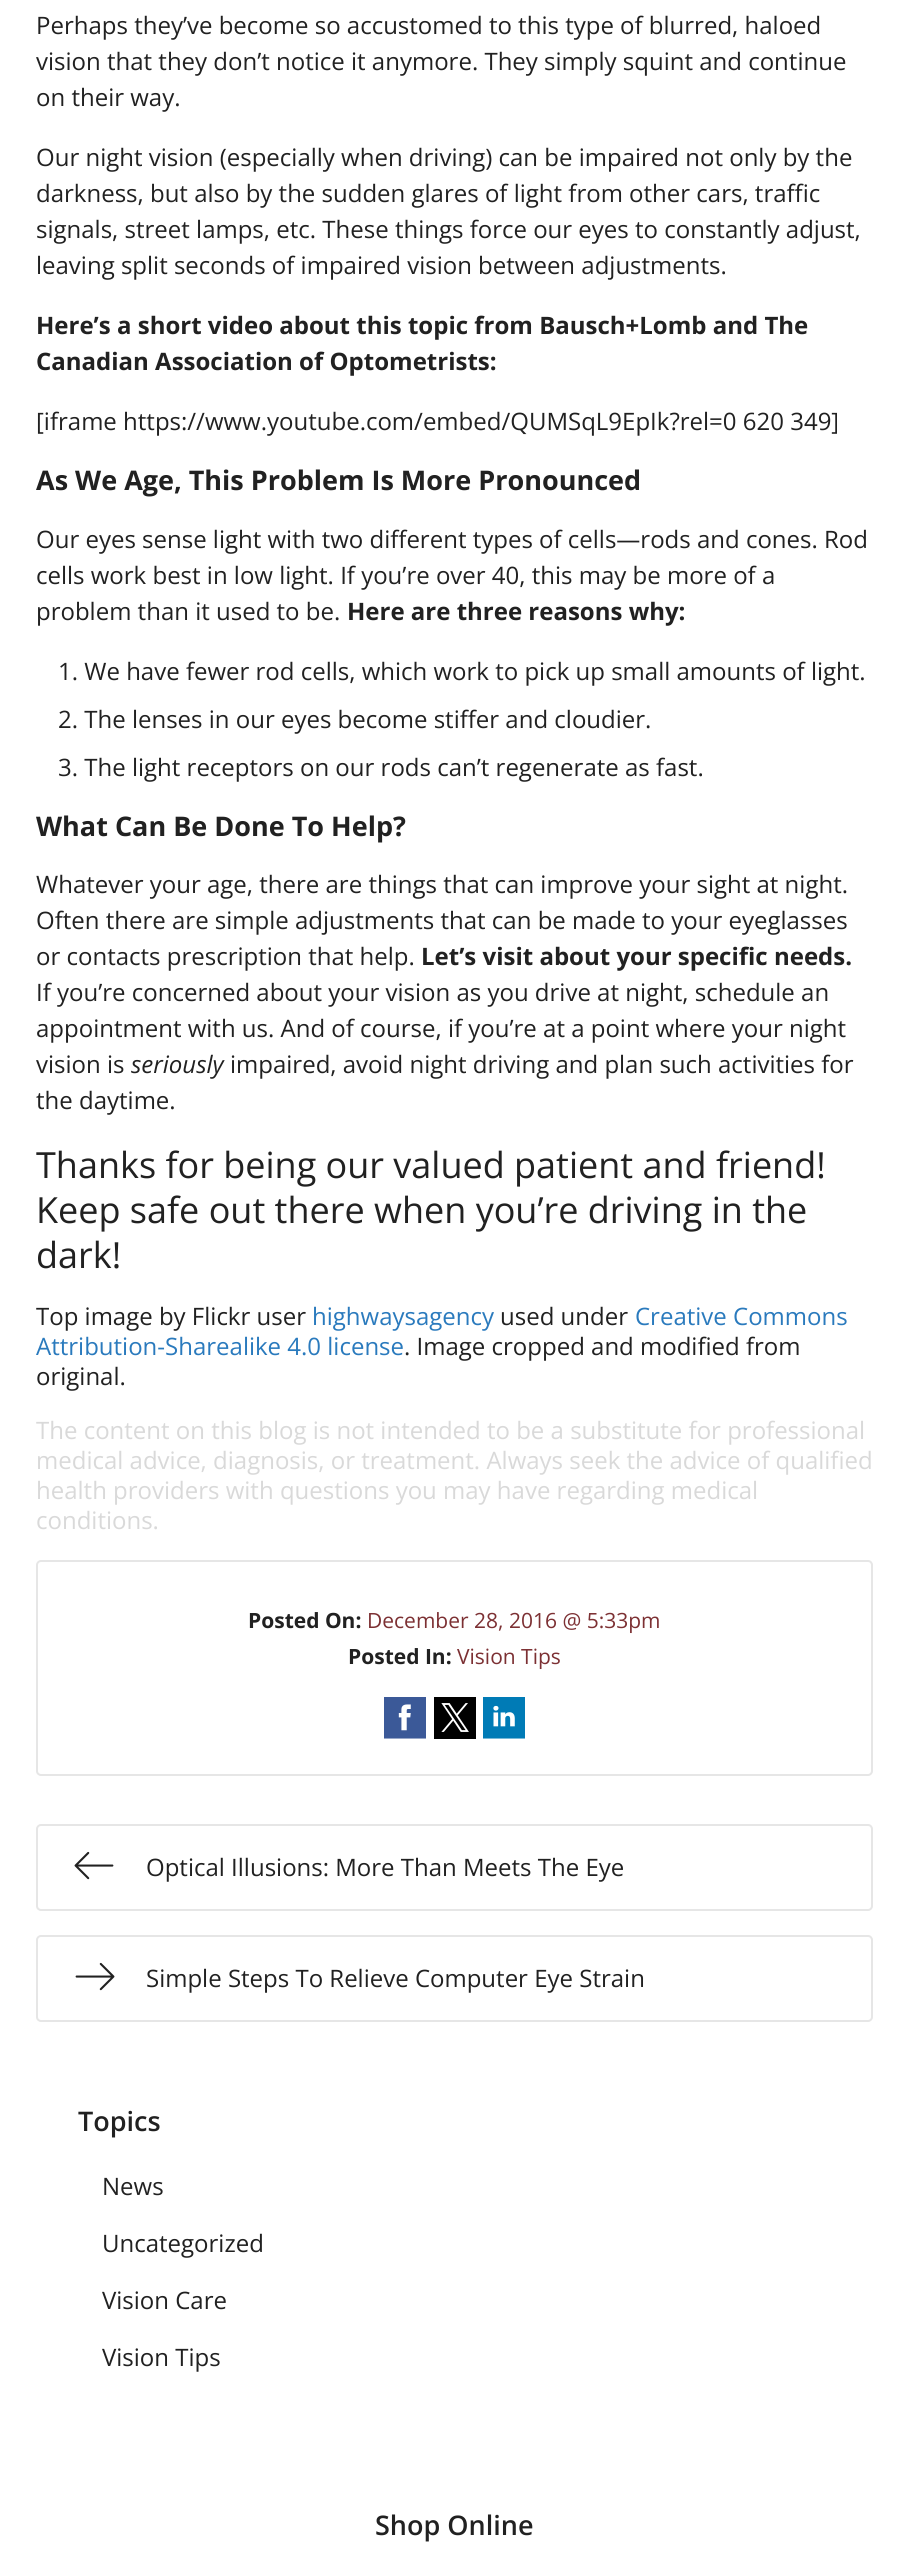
import math
import cairo


def round_path(ctx, x, y, w, h, r):
	ctx.new_sub_path()
	for i, (u, v) in enumerate([(x + w - r, y + h - r), (x + r, y + h - r), (x + r, y + r), (x + w - r, y + r)]):
		ctx.arc(u, v, r, i * math.pi / 2, (i + 1) * math.pi / 2)
	ctx.close_path()

def paste(ctx, path, x, y, w, h):
	ctx.save()
	ctx.set_source_surface(cairo.ImageSurface.create_from_png(path), x, y)
	ctx.rectangle(x, y, w, h)
	ctx.fill()
	ctx.restore()

def draw(ctx):
	ctx.set_source_rgb(1, 1, 1)
	ctx.paint()
	ctx.select_font_face('Open Sans')
	ctx.set_font_size(24)
	ctx.set_source_rgb(0.129, 0.129, 0.129)
	for x, y, s in [
		(36, 34, 'Perhaps they’ve become so accustomed to this type of blurred, haloed'),
		(36, 70, 'vision that they don’t notice it anymore. They simply squint and continue'),
		(36, 106, 'on their way.'),
		(36, 166, 'Our night vision (especially when driving) can be impaired not only by the'),
		(36, 202, 'darkness, but also by the sudden glares of light from other cars, traffic'),
		(36, 238, 'signals, street lamps, etc. These things force our eyes to constantly adjust,'),
		(36, 274, 'leaving split seconds of impaired vision between adjustments.'),
	]:
		ctx.move_to(x, y)
		ctx.show_text(s)
	ctx.select_font_face('Open Sans', cairo.FONT_SLANT_NORMAL, cairo.FONT_WEIGHT_BOLD)
	ctx.move_to(36, 334)
	ctx.show_text('Here’s a short video about this topic from Bausch+Lomb and The')
	ctx.move_to(36, 370)
	ctx.show_text('Canadian Association of Optometrists:')
	ctx.select_font_face('Open Sans')
	ctx.move_to(36, 430)
	ctx.show_text('[iframe https://www.youtube.com/embed/QUMSqL9EpIk?rel=0 620 349]')
	ctx.select_font_face('Open Sans', cairo.FONT_SLANT_NORMAL, cairo.FONT_WEIGHT_BOLD)
	ctx.set_font_size(27)
	ctx.move_to(36, 490)
	ctx.show_text('As We Age, This Problem Is More Pronounced')
	ctx.select_font_face('Open Sans')
	ctx.set_font_size(24)
	for x, y, s in [
		(36, 548, 'Our eyes sense light with two different types of cells—rods and cones. Rod'),
		(36, 584, 'cells work best in low light. If you’re over 40, this may be more of a'),
		(36, 620, 'problem than it used to be.'),
	]:
		ctx.move_to(x, y)
		ctx.show_text(s)
	ctx.select_font_face('Open Sans', cairo.FONT_SLANT_NORMAL, cairo.FONT_WEIGHT_BOLD)
	ctx.move_to(347, 620)
	ctx.show_text('Here are three reasons why:')
	ctx.select_font_face('Open Sans')
	for x, y, s in [
		(58, 680, '1. We have fewer rod cells, which work to pick up small amounts of light.'),
		(58, 728, '2. The lenses in our eyes become stiffer and cloudier.'),
		(58, 776, '3. The light receptors on our rods can’t regenerate as fast.'),
	]:
		ctx.move_to(x, y)
		ctx.show_text(s)
	ctx.select_font_face('Open Sans', cairo.FONT_SLANT_NORMAL, cairo.FONT_WEIGHT_BOLD)
	ctx.set_font_size(27)
	ctx.move_to(36, 836)
	ctx.show_text('What Can Be Done To Help?')
	ctx.select_font_face('Open Sans')
	ctx.set_font_size(24)
	for x, y, s in [
		(36, 893, 'Whatever your age, there are things that can improve your sight at night.'),
		(36, 929, 'Often there are simple adjustments that can be made to your eyeglasses'),
		(36, 965, 'or contacts prescription that help.'),
	]:
		ctx.move_to(x, y)
		ctx.show_text(s)
	ctx.select_font_face('Open Sans', cairo.FONT_SLANT_NORMAL, cairo.FONT_WEIGHT_BOLD)
	ctx.move_to(421, 965)
	ctx.show_text('Let’s visit about your specific needs.')
	ctx.select_font_face('Open Sans')
	for x, y, s in [
		(36, 1001, 'If you’re concerned about your vision as you drive at night, schedule an'),
		(36, 1037, 'appointment with us. And of course, if you’re at a point where your night'),
		(36, 1073, 'vision is'),
	]:
		ctx.move_to(x, y)
		ctx.show_text(s)
	ctx.select_font_face('Open Sans', cairo.FONT_SLANT_ITALIC)
	ctx.move_to(131, 1073)
	ctx.show_text('seriously')
	ctx.select_font_face('Open Sans')
	ctx.move_to(230, 1073)
	ctx.show_text('impaired, avoid night driving and plan such activities for')
	ctx.move_to(36, 1109)
	ctx.show_text('the daytime.')
	ctx.set_font_size(36)
	for x, y, s in [
		(36, 1178, 'Thanks for being our valued patient and friend!'),
		(36, 1223, 'Keep safe out there when you’re driving in the'),
		(36, 1268, 'dark!'),
	]:
		ctx.move_to(x, y)
		ctx.show_text(s)
	ctx.set_font_size(24)
	ctx.move_to(36, 1325)
	ctx.show_text('Top image by Flickr user')
	ctx.set_source_rgb(0.165, 0.478, 0.741)
	ctx.move_to(312, 1325)
	ctx.show_text('highwaysagency')
	ctx.set_source_rgb(0.129, 0.129, 0.129)
	ctx.move_to(500, 1325)
	ctx.show_text('used under')
	ctx.set_source_rgb(0.165, 0.478, 0.741)
	ctx.move_to(635, 1325)
	ctx.show_text('Creative Commons')
	ctx.move_to(36, 1355)
	ctx.show_text('Attribution-Sharealike 4.0 license')
	ctx.set_source_rgb(0.129, 0.129, 0.129)
	ctx.move_to(404, 1355)
	ctx.show_text('. Image cropped and modified from')
	ctx.move_to(36, 1385)
	ctx.show_text('original.')
	ctx.set_source_rgb(0.851, 0.851, 0.851)
	for x, y, s in [
		(36, 1439, 'The content on this blog is not intended to be a substitute for professional'),
		(36, 1469, 'medical advice, diagnosis, or treatment. Always seek the advice of qualified'),
		(36, 1499, 'health providers with questions you may have regarding medical'),
		(36, 1529, 'conditions.'),
	]:
		ctx.move_to(x, y)
		ctx.show_text(s)
	round_path(ctx, 37, 1561, 835, 214, 4)
	ctx.set_source_rgb(0.902, 0.902, 0.902)
	ctx.stroke()
	ctx.select_font_face('Open Sans', cairo.FONT_SLANT_NORMAL, cairo.FONT_WEIGHT_BOLD)
	ctx.set_font_size(21)
	ctx.set_source_rgb(0.129, 0.129, 0.129)
	ctx.move_to(248, 1628)
	ctx.show_text('Posted On:')
	ctx.select_font_face('Open Sans')
	ctx.set_source_rgb(0.486, 0.188, 0.2)
	ctx.move_to(367, 1628)
	ctx.show_text('December 28, 2016 @ 5:33pm')
	ctx.select_font_face('Open Sans', cairo.FONT_SLANT_NORMAL, cairo.FONT_WEIGHT_BOLD)
	ctx.set_source_rgb(0.129, 0.129, 0.129)
	ctx.move_to(348, 1664)
	ctx.show_text('Posted In:')
	ctx.select_font_face('Open Sans')
	ctx.set_source_rgb(0.486, 0.188, 0.2)
	ctx.move_to(457, 1664)
	ctx.show_text('Vision Tips')
	paste(ctx, 'media/1.png', 384, 1697, 42, 42)
	paste(ctx, 'media/2.png', 434, 1697, 42, 42)
	paste(ctx, 'media/3.png', 483, 1697, 42, 42)
	round_path(ctx, 37, 1825, 835, 85, 4)
	ctx.set_source_rgb(0.902, 0.902, 0.902)
	ctx.stroke()
	paste(ctx, 'media/4.png', 74, 1851, 40, 29)
	ctx.set_font_size(24)
	ctx.set_source_rgb(0.129, 0.129, 0.129)
	ctx.move_to(146, 1876)
	ctx.show_text('Optical Illusions: More Than Meets The Eye')
	round_path(ctx, 37, 1936, 835, 85, 4)
	ctx.set_source_rgb(0.902, 0.902, 0.902)
	ctx.stroke()
	paste(ctx, 'media/5.png', 75, 1962, 40, 29)
	ctx.set_source_rgb(0.129, 0.129, 0.129)
	ctx.move_to(146, 1987)
	ctx.show_text('Simple Steps To Relieve Computer Eye Strain')
	ctx.select_font_face('Open Sans SemiBold')
	ctx.set_font_size(27)
	ctx.move_to(78, 2131)
	ctx.show_text('Topics')
	ctx.select_font_face('Open Sans')
	ctx.set_font_size(24)
	for x, y, s in [
		(102, 2195, 'News'),
		(102, 2252, 'Uncategorized'),
		(102, 2309, 'Vision Care'),
		(102, 2366, 'Vision Tips'),
	]:
		ctx.move_to(x, y)
		ctx.show_text(s)
	ctx.select_font_face('Open Sans SemiBold')
	ctx.set_font_size(27)
	ctx.move_to(375, 2535)
	ctx.show_text('Shop Online')


surface = cairo.ImageSurface(cairo.FORMAT_RGB24, 909, 2568)
ctx = cairo.Context(surface)
options = cairo.FontOptions()
options.set_hint_metrics(cairo.HINT_METRICS_OFF)
options.set_hint_style(cairo.HINT_STYLE_NONE)
ctx.set_font_options(options)
ctx.set_miter_limit(4)
draw(ctx)
surface.write_to_png('image.png')
